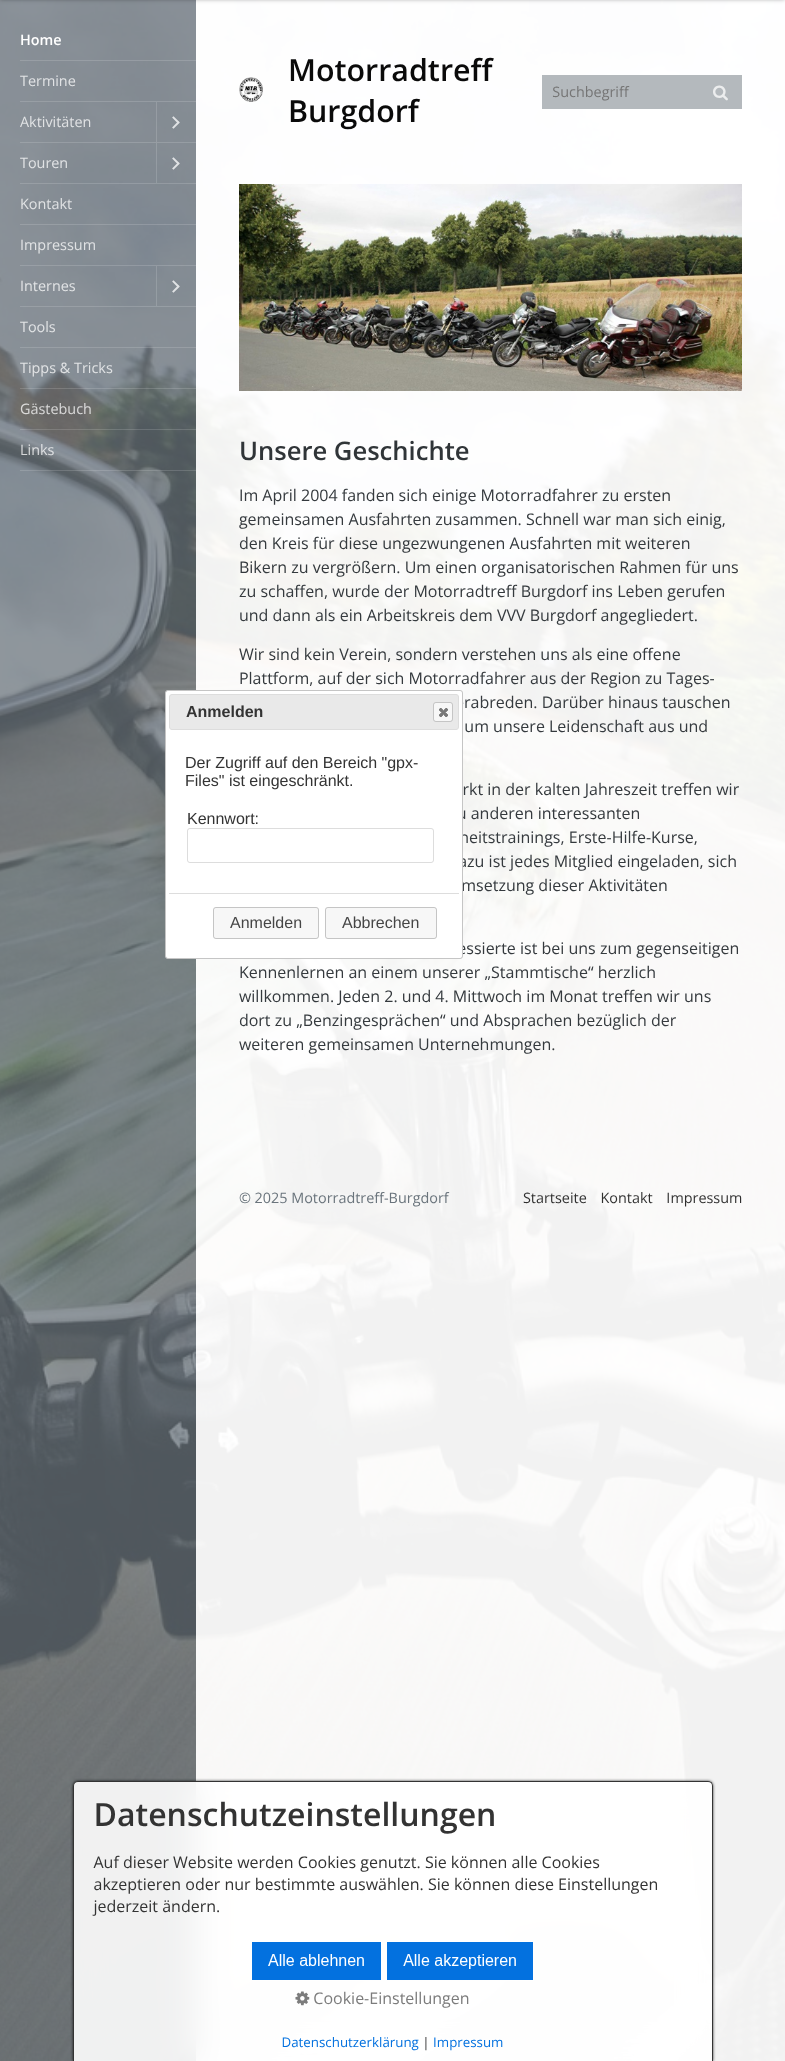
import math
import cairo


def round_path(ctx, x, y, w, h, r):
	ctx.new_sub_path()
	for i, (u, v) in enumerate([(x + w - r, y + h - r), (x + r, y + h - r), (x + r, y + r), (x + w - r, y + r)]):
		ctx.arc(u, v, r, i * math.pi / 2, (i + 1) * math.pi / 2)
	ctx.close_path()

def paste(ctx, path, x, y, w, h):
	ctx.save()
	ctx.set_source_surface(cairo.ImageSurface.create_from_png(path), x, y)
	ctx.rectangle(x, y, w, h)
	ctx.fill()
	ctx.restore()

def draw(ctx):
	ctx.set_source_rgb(1, 1, 1)
	ctx.paint()
	paste(ctx, 'media/1.png', 0, 0, 785, 2061)
	ctx.set_source_rgb(1, 1, 1)
	round_path(ctx, 165.5, 690.5, 297, 268, 2.5)
	ctx.fill_preserve()
	ctx.set_source_rgb(0.773, 0.773, 0.773)
	ctx.set_line_width(1)
	ctx.stroke()
	ctx.set_source_rgb(0.914, 0.914, 0.914)
	round_path(ctx, 169.5, 694.5, 289, 35, 2.5)
	ctx.fill_preserve()
	ctx.set_source_rgb(0.867, 0.867, 0.867)
	ctx.stroke()
	ctx.select_font_face('Liberation Sans', cairo.FONT_SLANT_NORMAL, cairo.FONT_WEIGHT_BOLD)
	ctx.set_font_size(16)
	ctx.set_source_rgb(0.2, 0.2, 0.2)
	ctx.move_to(186, 717)
	ctx.show_text('Anmelden')
	ctx.set_source_rgb(0.965, 0.965, 0.965)
	round_path(ctx, 433.5, 702.5, 19, 19, 2.5)
	ctx.fill_preserve()
	ctx.set_source_rgb(0.773, 0.773, 0.773)
	ctx.stroke()
	paste(ctx, 'media/2.png', 439, 708, 9, 9)
	ctx.select_font_face('Liberation Sans')
	ctx.set_source_rgb(0.2, 0.2, 0.2)
	for x, y, s in [
		(185, 768, 'Der Zugriff auf den Bereich "gpx-'),
		(185, 786, 'Files" ist eingeschränkt.'),
		(187, 824, 'Kennwort:'),
	]:
		ctx.move_to(x, y)
		ctx.show_text(s)
	round_path(ctx, 187.5, 828.5, 246, 34, 2.5)
	ctx.set_source_rgb(0.867, 0.867, 0.867)
	ctx.stroke()
	ctx.rectangle(169, 893, 290, 1)
	ctx.fill()
	ctx.set_source_rgb(0.965, 0.965, 0.965)
	round_path(ctx, 213.5, 907.5, 105, 31, 2.5)
	ctx.fill_preserve()
	ctx.set_source_rgb(0.773, 0.773, 0.773)
	ctx.stroke()
	ctx.set_source_rgb(0.271, 0.271, 0.271)
	ctx.move_to(230, 928)
	ctx.show_text('Anmelden')
	ctx.set_source_rgb(0.965, 0.965, 0.965)
	round_path(ctx, 325.5, 907.5, 111, 31, 2.5)
	ctx.fill_preserve()
	ctx.set_source_rgb(0.773, 0.773, 0.773)
	ctx.stroke()
	ctx.set_source_rgb(0.271, 0.271, 0.271)
	ctx.move_to(342, 928)
	ctx.show_text('Abbrechen')


surface = cairo.ImageSurface(cairo.FORMAT_RGB24, 785, 2061)
ctx = cairo.Context(surface)
options = cairo.FontOptions()
options.set_hint_metrics(cairo.HINT_METRICS_OFF)
options.set_hint_style(cairo.HINT_STYLE_NONE)
ctx.set_font_options(options)
ctx.set_miter_limit(4)
draw(ctx)
surface.write_to_png('image.png')
